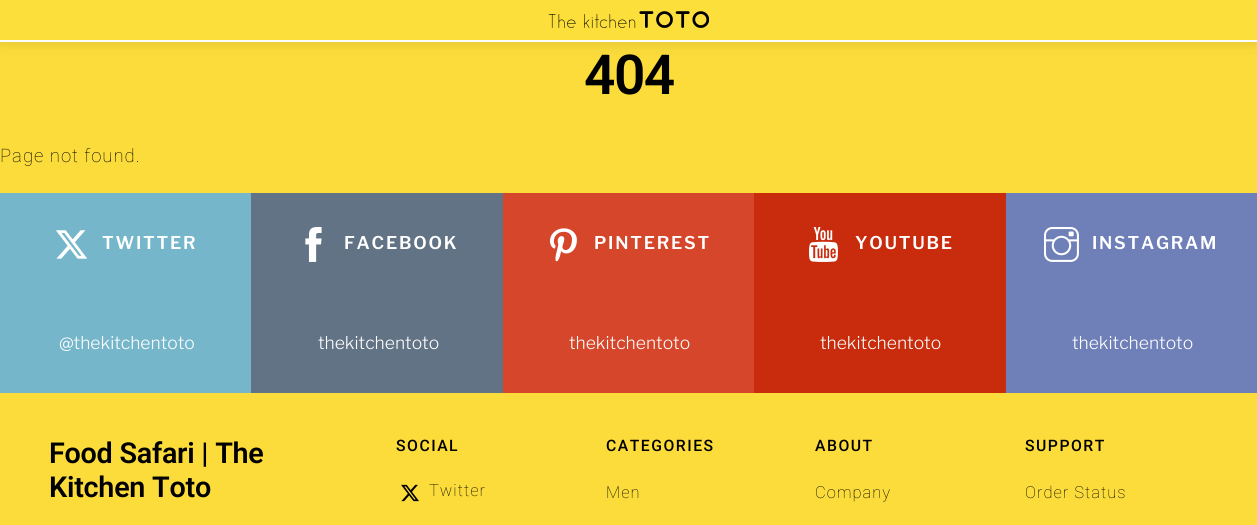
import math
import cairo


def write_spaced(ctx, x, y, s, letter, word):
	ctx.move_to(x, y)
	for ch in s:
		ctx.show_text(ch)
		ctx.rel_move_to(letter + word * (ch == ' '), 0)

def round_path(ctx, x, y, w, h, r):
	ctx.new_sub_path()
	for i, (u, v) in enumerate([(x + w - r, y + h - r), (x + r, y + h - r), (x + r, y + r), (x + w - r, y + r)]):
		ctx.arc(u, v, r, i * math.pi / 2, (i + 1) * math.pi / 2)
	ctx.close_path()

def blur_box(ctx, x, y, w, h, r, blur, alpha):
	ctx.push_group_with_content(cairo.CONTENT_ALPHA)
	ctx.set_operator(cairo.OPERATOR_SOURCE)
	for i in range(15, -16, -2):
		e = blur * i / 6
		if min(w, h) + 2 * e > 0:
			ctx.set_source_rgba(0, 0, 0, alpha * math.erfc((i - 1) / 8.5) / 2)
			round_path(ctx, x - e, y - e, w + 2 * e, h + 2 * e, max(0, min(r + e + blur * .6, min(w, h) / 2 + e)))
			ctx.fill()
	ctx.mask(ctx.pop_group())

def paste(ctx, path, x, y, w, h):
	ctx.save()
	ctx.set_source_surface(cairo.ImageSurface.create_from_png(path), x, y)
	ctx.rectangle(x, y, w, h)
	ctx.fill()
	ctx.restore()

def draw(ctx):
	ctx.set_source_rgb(0.988, 0.863, 0.231)
	ctx.paint()
	ctx.set_source_rgb(0, 0, 0)
	blur_box(ctx, 0, 1, 1257, 42, 0, 7.5, 0.12)
	ctx.set_source_rgb(0.988, 0.875, 0.227)
	ctx.rectangle(0, 0, 1257, 40)
	ctx.fill()
	ctx.set_source_rgb(1, 1, 1)
	ctx.rectangle(0, 40, 1257, 2)
	ctx.fill()
	paste(ctx, 'media/1.png', 548, 11, 161, 17)
	ctx.select_font_face('Roboto SemiBold')
	ctx.set_font_size(55)
	ctx.set_source_rgb(0, 0, 0)
	write_spaced(ctx, 584, 94, '404', -1.5, 0)
	ctx.select_font_face('Roboto Thin')
	ctx.set_font_size(18.5)
	write_spaced(ctx, 0, 162, 'Page not found.', 1, 0)
	ctx.set_source_rgb(0.463, 0.714, 0.792)
	ctx.rectangle(0, 193, 251, 200)
	ctx.fill()
	paste(ctx, 'media/2.png', 56, 230, 32, 29)
	ctx.select_font_face('Libre Franklin SemiBold')
	ctx.set_font_size(17.5)
	ctx.set_source_rgb(1, 1, 1)
	write_spaced(ctx, 102, 249, 'TWITTER', 1.75, 0)
	ctx.select_font_face('Libre Franklin Light')
	ctx.move_to(59, 349)
	ctx.show_text('@thekitchentoto')
	ctx.set_source_rgb(0.384, 0.451, 0.522)
	ctx.rectangle(251, 193, 252, 200)
	ctx.fill()
	paste(ctx, 'media/3.png', 305, 227, 17, 35)
	ctx.select_font_face('Libre Franklin SemiBold')
	ctx.set_source_rgb(1, 1, 1)
	write_spaced(ctx, 344, 249, 'FACEBOOK', 1.75, 0)
	ctx.select_font_face('Libre Franklin Light')
	ctx.move_to(318, 349)
	ctx.show_text('thekitchentoto')
	ctx.set_source_rgb(0.835, 0.275, 0.169)
	ctx.rectangle(503, 193, 251, 200)
	ctx.fill()
	paste(ctx, 'media/4.png', 550, 228, 27, 34)
	ctx.select_font_face('Libre Franklin SemiBold')
	ctx.set_source_rgb(1, 1, 1)
	write_spaced(ctx, 594, 249, 'PINTEREST', 1.75, 0)
	ctx.select_font_face('Libre Franklin Light')
	ctx.move_to(569, 349)
	ctx.show_text('thekitchentoto')
	ctx.set_source_rgb(0.784, 0.173, 0.047)
	ctx.rectangle(754, 193, 252, 200)
	ctx.fill()
	paste(ctx, 'media/5.png', 809, 227, 29, 35)
	ctx.select_font_face('Libre Franklin SemiBold')
	ctx.set_source_rgb(1, 1, 1)
	write_spaced(ctx, 855, 249, 'YOUTUBE', 1.75, 0)
	ctx.select_font_face('Libre Franklin Light')
	ctx.move_to(820, 349)
	ctx.show_text('thekitchentoto')
	ctx.set_source_rgb(0.435, 0.498, 0.722)
	ctx.rectangle(1006, 193, 251, 200)
	ctx.fill()
	paste(ctx, 'media/6.png', 1044, 227, 35, 35)
	ctx.select_font_face('Libre Franklin SemiBold')
	ctx.set_source_rgb(1, 1, 1)
	write_spaced(ctx, 1092, 249, 'INSTAGRAM', 1.75, 0)
	ctx.select_font_face('Libre Franklin Light')
	ctx.move_to(1072, 349)
	ctx.show_text('thekitchentoto')
	ctx.select_font_face('Roboto SemiBold')
	ctx.set_font_size(28.75)
	ctx.set_source_rgb(0, 0, 0)
	write_spaced(ctx, 49, 463, 'Food Safari | The', -0.25, 0)
	write_spaced(ctx, 49, 497, 'Kitchen Toto', -0.25, 0)
	ctx.select_font_face('Roboto Medium')
	ctx.set_font_size(15.75)
	write_spaced(ctx, 396, 451, 'SOCIAL', 1.5, 0)
	paste(ctx, 'media/7.png', 401, 484, 18, 18)
	ctx.select_font_face('Roboto Thin')
	ctx.set_font_size(16.5)
	write_spaced(ctx, 429, 496, 'Twitter', 1, 0)
	ctx.select_font_face('Roboto Medium')
	ctx.set_font_size(15.75)
	write_spaced(ctx, 606, 451, 'CATEGORIES', 1.5, 0)
	ctx.select_font_face('Roboto Thin')
	ctx.set_font_size(16.5)
	write_spaced(ctx, 606, 498, 'Men', 1, 0)
	ctx.select_font_face('Roboto Medium')
	ctx.set_font_size(15.75)
	write_spaced(ctx, 815, 451, 'ABOUT', 1.5, 0)
	ctx.select_font_face('Roboto Thin')
	ctx.set_font_size(16.5)
	write_spaced(ctx, 815, 498, 'Company', 1, 0)
	ctx.select_font_face('Roboto Medium')
	ctx.set_font_size(15.75)
	write_spaced(ctx, 1025, 451, 'SUPPORT', 1.5, 0)
	ctx.select_font_face('Roboto Thin')
	ctx.set_font_size(16.5)
	write_spaced(ctx, 1025, 498, 'Order Status', 1, 0)


surface = cairo.ImageSurface(cairo.FORMAT_RGB24, 1257, 525)
ctx = cairo.Context(surface)
options = cairo.FontOptions()
options.set_hint_metrics(cairo.HINT_METRICS_OFF)
options.set_hint_style(cairo.HINT_STYLE_NONE)
ctx.set_font_options(options)
ctx.set_miter_limit(4)
draw(ctx)
surface.write_to_png('image.png')
